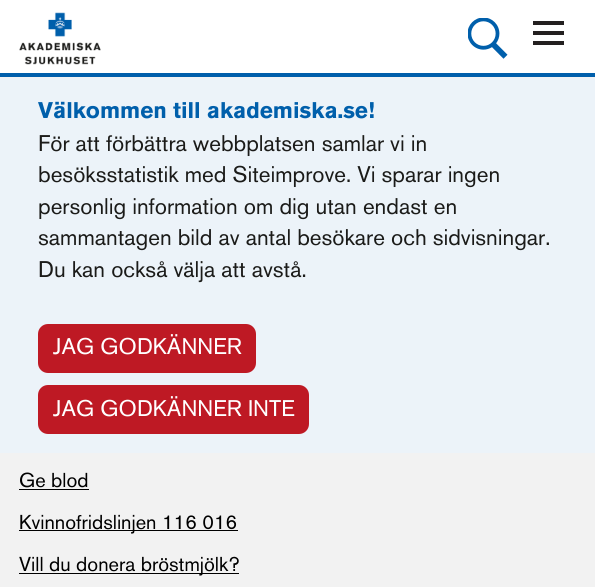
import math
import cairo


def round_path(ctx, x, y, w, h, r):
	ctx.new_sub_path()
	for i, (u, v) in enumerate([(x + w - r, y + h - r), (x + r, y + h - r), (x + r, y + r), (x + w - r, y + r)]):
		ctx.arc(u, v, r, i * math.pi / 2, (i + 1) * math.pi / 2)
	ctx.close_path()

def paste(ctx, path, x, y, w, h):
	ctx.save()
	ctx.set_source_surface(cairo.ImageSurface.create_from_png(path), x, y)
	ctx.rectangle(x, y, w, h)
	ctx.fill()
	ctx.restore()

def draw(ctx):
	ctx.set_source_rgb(0.949, 0.949, 0.949)
	ctx.paint()
	ctx.set_source_rgb(1, 1, 1)
	ctx.rectangle(0, 0, 595, 73)
	ctx.fill()
	ctx.set_source_rgb(0, 0.373, 0.671)
	ctx.rectangle(0, 73, 595, 4)
	ctx.fill()
	paste(ctx, 'media/1.png', 19, 12, 82, 53)
	paste(ctx, 'media/2.png', 468, 18, 40, 41)
	ctx.set_source_rgb(0.137, 0.125, 0.125)
	ctx.rectangle(533, 21, 31, 4)
	ctx.rectangle(533, 31, 31, 4)
	ctx.rectangle(533, 41, 31, 4)
	ctx.fill()
	ctx.set_source_rgb(0.925, 0.953, 0.976)
	ctx.rectangle(0, 78, 595, 375)
	ctx.fill()
	ctx.select_font_face('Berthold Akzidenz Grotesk', cairo.FONT_SLANT_NORMAL, cairo.FONT_WEIGHT_BOLD)
	ctx.set_font_size(22.5)
	ctx.set_source_rgb(0, 0.373, 0.671)
	ctx.move_to(38, 118)
	ctx.show_text('Välkommen till akademiska.se!')
	ctx.select_font_face('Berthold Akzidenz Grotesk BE')
	ctx.set_source_rgb(0.106, 0.106, 0.098)
	for x, y, s in [
		(38, 151, 'För att förbättra webbplatsen samlar vi in'),
		(38, 182, 'besöksstatistik med Siteimprove. Vi sparar ingen'),
		(38, 214, 'personlig information om dig utan endast en'),
		(38, 245, 'sammantagen bild av antal besökare och sidvisningar.'),
		(38, 277, 'Du kan också välja att avstå.'),
	]:
		ctx.move_to(x, y)
		ctx.show_text(s)
	ctx.set_source_rgb(0.745, 0.098, 0.141)
	round_path(ctx, 39.5, 325.5, 215, 46, 8.5)
	ctx.fill_preserve()
	ctx.set_line_width(3)
	ctx.stroke()
	ctx.set_source_rgb(1, 1, 1)
	ctx.move_to(53, 354)
	ctx.show_text('JAG GODKÄNNER')
	ctx.set_source_rgb(0.745, 0.098, 0.141)
	round_path(ctx, 39.5, 386.5, 268, 46, 8.5)
	ctx.fill_preserve()
	ctx.stroke()
	ctx.set_source_rgb(1, 1, 1)
	ctx.move_to(53, 416)
	ctx.show_text('JAG GODKÄNNER INTE')
	ctx.set_font_size(20)
	ctx.set_source_rgb(0, 0, 0)
	ctx.move_to(19, 487)
	ctx.show_text('Ge blod')
	ctx.rectangle(19, 489, 70, 1)
	ctx.fill()
	ctx.rectangle(19, 530, 219, 1)
	ctx.fill()
	ctx.move_to(19, 529)
	ctx.show_text('Kvinnofridslinjen 116 016')
	ctx.rectangle(19, 573, 220, 1)
	ctx.fill()
	ctx.move_to(19, 571)
	ctx.show_text('Vill du donera bröstmjölk?')


surface = cairo.ImageSurface(cairo.FORMAT_RGB24, 595, 587)
ctx = cairo.Context(surface)
options = cairo.FontOptions()
options.set_hint_metrics(cairo.HINT_METRICS_OFF)
options.set_hint_style(cairo.HINT_STYLE_NONE)
ctx.set_font_options(options)
ctx.set_miter_limit(4)
draw(ctx)
surface.write_to_png('image.png')
